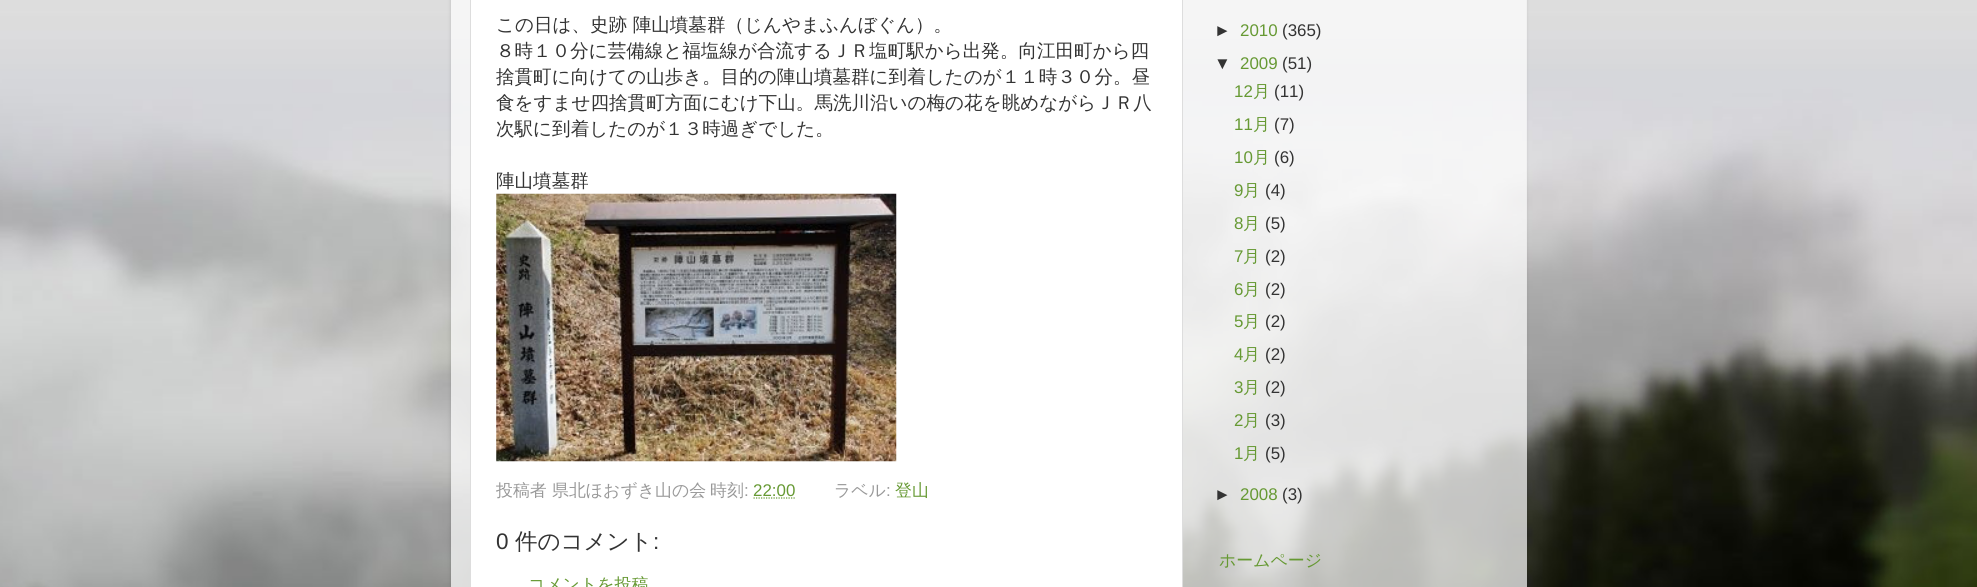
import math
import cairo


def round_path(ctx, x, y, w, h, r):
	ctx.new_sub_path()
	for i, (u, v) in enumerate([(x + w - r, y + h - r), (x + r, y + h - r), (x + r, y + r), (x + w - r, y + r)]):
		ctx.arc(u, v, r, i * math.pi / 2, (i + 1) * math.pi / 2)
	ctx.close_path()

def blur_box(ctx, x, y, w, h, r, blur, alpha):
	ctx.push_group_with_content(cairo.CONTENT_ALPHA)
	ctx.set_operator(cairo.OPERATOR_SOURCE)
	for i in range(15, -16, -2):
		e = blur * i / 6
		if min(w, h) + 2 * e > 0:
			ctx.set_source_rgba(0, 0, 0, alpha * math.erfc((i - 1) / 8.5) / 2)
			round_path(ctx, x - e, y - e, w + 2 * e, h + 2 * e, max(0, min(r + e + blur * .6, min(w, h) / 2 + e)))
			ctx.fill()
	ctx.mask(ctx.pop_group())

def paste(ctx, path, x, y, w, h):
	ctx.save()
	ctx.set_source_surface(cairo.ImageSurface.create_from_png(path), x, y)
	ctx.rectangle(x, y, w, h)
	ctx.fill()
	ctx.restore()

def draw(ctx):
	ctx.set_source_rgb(1, 1, 1)
	ctx.paint()
	paste(ctx, 'media/1.png', 0, 0, 1977, 587)
	ctx.save()
	ctx.set_fill_rule(cairo.FILL_RULE_EVEN_ODD)
	ctx.new_path()
	ctx.move_to(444, 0)
	ctx.line_to(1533, 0)
	ctx.line_to(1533, 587)
	ctx.line_to(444, 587)
	ctx.close_path()
	ctx.move_to(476, -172)
	ctx.line_to(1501, -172)
	ctx.curve_to(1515, -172, 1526, -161, 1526, -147)
	ctx.line_to(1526, 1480)
	ctx.line_to(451, 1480)
	ctx.line_to(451, -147)
	ctx.curve_to(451, -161, 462, -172, 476, -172)
	ctx.close_path()
	ctx.clip()
	ctx.set_source_rgb(0, 0, 0)
	blur_box(ctx, 451, -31, 1075, 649, 25, 2, 0.15)
	ctx.restore()
	ctx.set_source_rgba(1, 1, 1, 0.7)
	ctx.rectangle(451, 0, 1076, 587)
	ctx.fill()
	ctx.set_source_rgb(1, 1, 1)
	ctx.rectangle(470.5, -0.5, 712, 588)
	ctx.fill_preserve()
	ctx.set_source_rgb(0.867, 0.867, 0.867)
	ctx.set_line_width(1)
	ctx.stroke()
	ctx.select_font_face('WenQuanYi Zen Hei Medium')
	ctx.set_font_size(18.55)
	ctx.set_source_rgb(0.2, 0.2, 0.2)
	for x, y, s in [
		(496, 31, 'この日は、史跡 陣山墳墓群（じんやまふんぼぐん）。'),
		(496, 57, '８時１０分に芸備線と福塩線が合流するＪＲ塩町駅から出発。向江田町から四'),
		(496, 83, '捨貫町に向けての山歩き。目的の陣山墳墓群に到着したのが１１時３０分。昼'),
		(496, 109, '食をすませ四捨貫町方面にむけ下山。馬洗川沿いの梅の花を眺めながらＪＲ八'),
		(496, 135, '次駅に到着したのが１３時過ぎでした。'),
		(496, 187, '陣山墳墓群'),
	]:
		ctx.move_to(x, y)
		ctx.show_text(s)
	paste(ctx, 'media/2.png', 496, 193, 401, 269)
	ctx.set_font_size(16.9)
	ctx.set_source_rgb(0.6, 0.6, 0.6)
	for x, y, s in [
		(496, 496, '投稿者'),
		(552, 496, '県北ほおずき山の会'),
		(710, 496, '時刻'),
	]:
		ctx.move_to(x, y)
		ctx.show_text(s)
	ctx.select_font_face('Liberation Sans')
	ctx.move_to(744, 496)
	ctx.show_text(':')
	ctx.set_source_rgb(0.4, 0.6, 0.2)
	ctx.move_to(753, 496)
	ctx.show_text('22:00')
	ctx.new_path()
	ctx.move_to(753.5, 498)
	ctx.line_to(795.5, 498)
	ctx.set_line_width(1.2)
	ctx.set_dash([1.25, 1.25])
	ctx.stroke()
	ctx.select_font_face('WenQuanYi Zen Hei Medium')
	ctx.set_source_rgb(0.6, 0.6, 0.6)
	ctx.move_to(834, 496)
	ctx.show_text('ラベル')
	ctx.select_font_face('Liberation Sans')
	ctx.move_to(886, 496)
	ctx.show_text(':')
	ctx.select_font_face('WenQuanYi Zen Hei Medium')
	ctx.set_source_rgb(0.4, 0.6, 0.2)
	ctx.move_to(895, 496)
	ctx.show_text('登山')
	ctx.select_font_face('Liberation Sans')
	ctx.set_font_size(22.5)
	ctx.set_source_rgb(0.2, 0.2, 0.2)
	ctx.move_to(496, 549)
	ctx.show_text('0')
	ctx.select_font_face('WenQuanYi Zen Hei Medium')
	ctx.move_to(515, 549)
	ctx.show_text('件のコメント')
	ctx.select_font_face('Liberation Sans')
	ctx.move_to(653, 549)
	ctx.show_text(':')
	ctx.select_font_face('WenQuanYi Zen Hei Medium')
	ctx.set_font_size(16.9)
	ctx.set_source_rgb(0.4, 0.6, 0.2)
	ctx.move_to(528, 590)
	ctx.show_text('コメントを投稿')
	ctx.select_font_face('Liberation Sans')
	ctx.set_source_rgb(0.2, 0.2, 0.2)
	ctx.move_to(1214, 36)
	ctx.show_text('►')
	ctx.set_source_rgb(0.4, 0.6, 0.2)
	ctx.move_to(1240, 36)
	ctx.show_text('2010')
	ctx.set_source_rgb(0.2, 0.2, 0.2)
	ctx.move_to(1282, 36)
	ctx.show_text('(365)')
	ctx.move_to(1214, 69)
	ctx.show_text('▼')
	ctx.set_source_rgb(0.4, 0.6, 0.2)
	ctx.move_to(1240, 69)
	ctx.show_text('2009')
	ctx.set_source_rgb(0.2, 0.2, 0.2)
	ctx.move_to(1282, 69)
	ctx.show_text('(51)')
	ctx.set_source_rgb(0.4, 0.6, 0.2)
	ctx.move_to(1234, 97)
	ctx.show_text('12')
	ctx.select_font_face('WenQuanYi Zen Hei Medium')
	ctx.move_to(1253, 97)
	ctx.show_text('月')
	ctx.select_font_face('Liberation Sans')
	ctx.set_source_rgb(0.2, 0.2, 0.2)
	ctx.move_to(1274, 97)
	ctx.show_text('(11)')
	ctx.set_source_rgb(0.4, 0.6, 0.2)
	ctx.move_to(1234, 130)
	ctx.show_text('11')
	ctx.select_font_face('WenQuanYi Zen Hei Medium')
	ctx.move_to(1253, 130)
	ctx.show_text('月')
	ctx.select_font_face('Liberation Sans')
	ctx.set_source_rgb(0.2, 0.2, 0.2)
	ctx.move_to(1274, 130)
	ctx.show_text('(7)')
	ctx.set_source_rgb(0.4, 0.6, 0.2)
	ctx.move_to(1234, 163)
	ctx.show_text('10')
	ctx.select_font_face('WenQuanYi Zen Hei Medium')
	ctx.move_to(1253, 163)
	ctx.show_text('月')
	ctx.select_font_face('Liberation Sans')
	ctx.set_source_rgb(0.2, 0.2, 0.2)
	ctx.move_to(1274, 163)
	ctx.show_text('(6)')
	ctx.set_source_rgb(0.4, 0.6, 0.2)
	ctx.move_to(1234, 196)
	ctx.show_text('9')
	ctx.select_font_face('WenQuanYi Zen Hei Medium')
	ctx.move_to(1243, 196)
	ctx.show_text('月')
	ctx.select_font_face('Liberation Sans')
	ctx.set_source_rgb(0.2, 0.2, 0.2)
	ctx.move_to(1265, 196)
	ctx.show_text('(4)')
	ctx.set_source_rgb(0.4, 0.6, 0.2)
	ctx.move_to(1234, 229)
	ctx.show_text('8')
	ctx.select_font_face('WenQuanYi Zen Hei Medium')
	ctx.move_to(1243, 229)
	ctx.show_text('月')
	ctx.select_font_face('Liberation Sans')
	ctx.set_source_rgb(0.2, 0.2, 0.2)
	ctx.move_to(1265, 229)
	ctx.show_text('(5)')
	ctx.set_source_rgb(0.4, 0.6, 0.2)
	ctx.move_to(1234, 262)
	ctx.show_text('7')
	ctx.select_font_face('WenQuanYi Zen Hei Medium')
	ctx.move_to(1243, 262)
	ctx.show_text('月')
	ctx.select_font_face('Liberation Sans')
	ctx.set_source_rgb(0.2, 0.2, 0.2)
	ctx.move_to(1265, 262)
	ctx.show_text('(2)')
	ctx.set_source_rgb(0.4, 0.6, 0.2)
	ctx.move_to(1234, 295)
	ctx.show_text('6')
	ctx.select_font_face('WenQuanYi Zen Hei Medium')
	ctx.move_to(1243, 295)
	ctx.show_text('月')
	ctx.select_font_face('Liberation Sans')
	ctx.set_source_rgb(0.2, 0.2, 0.2)
	ctx.move_to(1265, 295)
	ctx.show_text('(2)')
	ctx.set_source_rgb(0.4, 0.6, 0.2)
	ctx.move_to(1234, 327)
	ctx.show_text('5')
	ctx.select_font_face('WenQuanYi Zen Hei Medium')
	ctx.move_to(1243, 327)
	ctx.show_text('月')
	ctx.select_font_face('Liberation Sans')
	ctx.set_source_rgb(0.2, 0.2, 0.2)
	ctx.move_to(1265, 327)
	ctx.show_text('(2)')
	ctx.set_source_rgb(0.4, 0.6, 0.2)
	ctx.move_to(1234, 360)
	ctx.show_text('4')
	ctx.select_font_face('WenQuanYi Zen Hei Medium')
	ctx.move_to(1243, 360)
	ctx.show_text('月')
	ctx.select_font_face('Liberation Sans')
	ctx.set_source_rgb(0.2, 0.2, 0.2)
	ctx.move_to(1265, 360)
	ctx.show_text('(2)')
	ctx.set_source_rgb(0.4, 0.6, 0.2)
	ctx.move_to(1234, 393)
	ctx.show_text('3')
	ctx.select_font_face('WenQuanYi Zen Hei Medium')
	ctx.move_to(1243, 393)
	ctx.show_text('月')
	ctx.select_font_face('Liberation Sans')
	ctx.set_source_rgb(0.2, 0.2, 0.2)
	ctx.move_to(1265, 393)
	ctx.show_text('(2)')
	ctx.set_source_rgb(0.4, 0.6, 0.2)
	ctx.move_to(1234, 426)
	ctx.show_text('2')
	ctx.select_font_face('WenQuanYi Zen Hei Medium')
	ctx.move_to(1243, 426)
	ctx.show_text('月')
	ctx.select_font_face('Liberation Sans')
	ctx.set_source_rgb(0.2, 0.2, 0.2)
	ctx.move_to(1265, 426)
	ctx.show_text('(3)')
	ctx.set_source_rgb(0.4, 0.6, 0.2)
	ctx.move_to(1234, 459)
	ctx.show_text('1')
	ctx.select_font_face('WenQuanYi Zen Hei Medium')
	ctx.move_to(1243, 459)
	ctx.show_text('月')
	ctx.select_font_face('Liberation Sans')
	ctx.set_source_rgb(0.2, 0.2, 0.2)
	ctx.move_to(1265, 459)
	ctx.show_text('(5)')
	ctx.move_to(1214, 500)
	ctx.show_text('►')
	ctx.set_source_rgb(0.4, 0.6, 0.2)
	ctx.move_to(1240, 500)
	ctx.show_text('2008')
	ctx.set_source_rgb(0.2, 0.2, 0.2)
	ctx.move_to(1282, 500)
	ctx.show_text('(3)')
	ctx.select_font_face('WenQuanYi Zen Hei Medium')
	ctx.set_source_rgb(0.4, 0.6, 0.2)
	ctx.move_to(1219, 566)
	ctx.show_text('ホームページ')


surface = cairo.ImageSurface(cairo.FORMAT_RGB24, 1977, 587)
ctx = cairo.Context(surface)
options = cairo.FontOptions()
options.set_hint_metrics(cairo.HINT_METRICS_OFF)
options.set_hint_style(cairo.HINT_STYLE_NONE)
ctx.set_font_options(options)
ctx.set_miter_limit(4)
draw(ctx)
surface.write_to_png('image.png')
